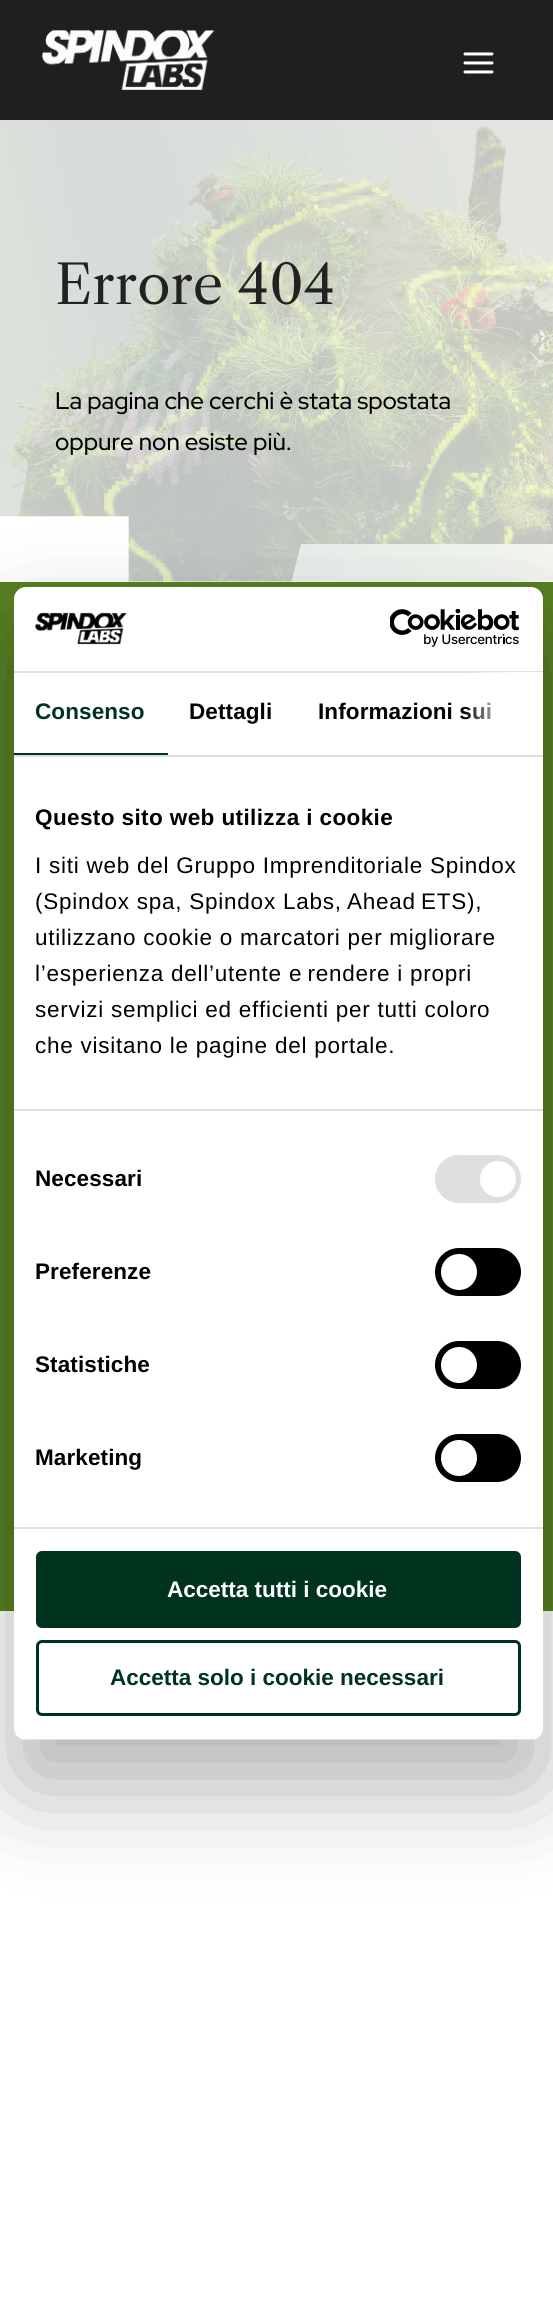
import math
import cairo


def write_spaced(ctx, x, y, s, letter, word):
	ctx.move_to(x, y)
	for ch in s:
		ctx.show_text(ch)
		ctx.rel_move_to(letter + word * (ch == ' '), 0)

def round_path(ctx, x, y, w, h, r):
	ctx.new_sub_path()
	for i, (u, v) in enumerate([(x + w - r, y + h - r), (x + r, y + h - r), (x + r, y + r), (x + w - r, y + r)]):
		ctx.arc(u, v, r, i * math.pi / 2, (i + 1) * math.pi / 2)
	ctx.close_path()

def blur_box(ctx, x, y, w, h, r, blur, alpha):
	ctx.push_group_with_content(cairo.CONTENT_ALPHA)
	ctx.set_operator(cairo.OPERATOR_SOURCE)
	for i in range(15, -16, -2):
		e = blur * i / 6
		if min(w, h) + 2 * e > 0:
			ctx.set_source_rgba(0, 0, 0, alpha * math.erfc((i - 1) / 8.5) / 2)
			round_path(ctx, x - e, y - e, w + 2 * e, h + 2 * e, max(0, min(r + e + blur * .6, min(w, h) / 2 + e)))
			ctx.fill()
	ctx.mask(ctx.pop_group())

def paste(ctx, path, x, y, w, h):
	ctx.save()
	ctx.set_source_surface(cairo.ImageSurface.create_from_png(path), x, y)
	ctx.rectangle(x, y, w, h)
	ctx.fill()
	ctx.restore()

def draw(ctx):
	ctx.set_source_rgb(1, 1, 1)
	ctx.paint()
	ctx.set_source_rgb(0.122, 0.122, 0.122)
	ctx.rectangle(0, 0, 553, 120)
	ctx.fill()
	paste(ctx, 'media/1.png', 42, 30, 173, 60)
	paste(ctx, 'media/2.png', 463, 52, 31, 22)
	paste(ctx, 'media/3.png', 0, 120, 553, 462)
	ctx.select_font_face('Libre Caslon Text')
	ctx.set_font_size(54)
	ctx.set_source_rgb(0.133, 0.133, 0.133)
	ctx.move_to(55, 304)
	ctx.show_text('Errore 404')
	ctx.select_font_face('Red Hat Display Medium')
	ctx.set_font_size(24)
	ctx.set_source_rgb(0, 0, 0)
	ctx.move_to(55, 409)
	ctx.show_text('La pagina che cerchi è stata spostata')
	ctx.move_to(55, 450)
	ctx.show_text('oppure non esiste più.')
	ctx.set_source_rgb(0.349, 0.506, 0.133)
	ctx.rectangle(0, 582, 553, 1029)
	ctx.fill()
	ctx.set_source_rgb(0, 0, 0)
	blur_box(ctx, 14, 635, 529, 1153, 12, 51, 0.3)
	ctx.set_source_rgb(1, 1, 1)
	round_path(ctx, 14, 587, 529, 1153, 12)
	ctx.fill()
	ctx.set_source_rgb(0.882, 0.871, 0.871)
	ctx.rectangle(14, 671, 529, 2)
	ctx.fill()
	paste(ctx, 'media/4.png', 35, 612, 92, 33)
	paste(ctx, 'media/5.png', 390, 609, 130, 38)
	ctx.rectangle(14, 755, 529, 2)
	ctx.fill()
	ctx.set_source_rgb(0, 0.2, 0.118)
	ctx.rectangle(14, 753, 154, 2)
	ctx.fill()
	ctx.select_font_face('Liberation Sans', cairo.FONT_SLANT_NORMAL, cairo.FONT_WEIGHT_BOLD)
	ctx.set_font_size(22.5)
	write_spaced(ctx, 35, 719, 'Consenso', 0.1, 0)
	ctx.set_source_rgb(0, 0, 0)
	write_spaced(ctx, 189, 719, 'Dettagli', 0.1, 0)
	write_spaced(ctx, 318, 719, 'Informazioni sui', 0.1, 0)
	gradient = cairo.LinearGradient(542, 713, 463, 713)
	gradient.add_color_stop_rgba(0, 1, 1, 1, 1)
	gradient.add_color_stop_rgba(0.5, 1, 1, 1, 0.8)
	gradient.add_color_stop_rgba(1, 1, 1, 1, 0)
	ctx.set_source(gradient)
	ctx.rectangle(464, 672, 79, 48)
	ctx.fill()
	ctx.set_source_rgb(0.882, 0.871, 0.871)
	ctx.rectangle(14, 1109, 529, 2)
	ctx.fill()
	ctx.set_source_rgb(0, 0, 0)
	write_spaced(ctx, 35, 825, 'Questo sito web utilizza i cookie', 0.4, 0)
	ctx.select_font_face('Liberation Sans')
	for x, y, s in [
		(35, 873, 'I siti web del Gruppo Imprenditoriale Spindox'),
		(35, 909, '(Spindox spa, Spindox Labs, Ahead ETS),'),
		(35, 945, 'utilizzano cookie o marcatori per migliorare'),
		(35, 981, 'l’esperienza dell’utente e rendere i propri'),
		(35, 1017, 'servizi semplici ed efficienti per tutti coloro'),
		(35, 1053, 'che visitano le pagine del portale.'),
	]:
		write_spaced(ctx, x, y, s, 0.75, 0)
	ctx.set_source_rgb(0.882, 0.871, 0.871)
	ctx.rectangle(14, 1527, 529, 2)
	ctx.fill()
	ctx.select_font_face('Liberation Sans', cairo.FONT_SLANT_NORMAL, cairo.FONT_WEIGHT_BOLD)
	ctx.set_source_rgb(0, 0, 0)
	write_spaced(ctx, 35, 1186, 'Necessari', 0.1, 0)
	ctx.set_source_rgb(0.882, 0.871, 0.871)
	round_path(ctx, 435, 1155, 86, 48, 24)
	ctx.fill()
	ctx.set_source_rgb(1, 1, 1)
	ctx.arc(498, 1179, 18, 0, 2 * math.pi)
	ctx.fill()
	ctx.set_source_rgb(0, 0, 0)
	write_spaced(ctx, 35, 1279, 'Preferenze', 0.1, 0)
	round_path(ctx, 435, 1248, 86, 48, 24)
	ctx.fill()
	ctx.set_source_rgb(1, 1, 1)
	ctx.arc(459, 1272, 18, 0, 2 * math.pi)
	ctx.fill()
	ctx.set_source_rgb(0, 0, 0)
	write_spaced(ctx, 35, 1372, 'Statistiche', 0.1, 0)
	round_path(ctx, 435, 1341, 86, 48, 24)
	ctx.fill()
	ctx.set_source_rgb(1, 1, 1)
	ctx.arc(459, 1365, 18, 0, 2 * math.pi)
	ctx.fill()
	ctx.set_source_rgb(0, 0, 0)
	write_spaced(ctx, 35, 1465, 'Marketing', 0.1, 0)
	round_path(ctx, 435, 1434, 86, 48, 24)
	ctx.fill()
	ctx.set_source_rgb(1, 1, 1)
	ctx.arc(459, 1458, 18, 0, 2 * math.pi)
	ctx.fill()
	ctx.save()
	round_path(ctx, 14, 587, 529, 1153, 12)
	ctx.clip()
	ctx.set_source_rgb(0.882, 0.871, 0.871)
	ctx.rectangle(14, 1739, 529, 1)
	ctx.fill()
	ctx.restore()
	ctx.set_source_rgb(0, 0.2, 0.118)
	round_path(ctx, 37.5, 1552.5, 482, 74, 4.5)
	ctx.fill_preserve()
	ctx.set_line_width(3)
	ctx.stroke()
	ctx.set_source_rgb(1, 1, 1)
	ctx.move_to(167, 1597)
	ctx.show_text('Accetta tutti i cookie')
	round_path(ctx, 37.5, 1641.5, 482, 73, 4.5)
	ctx.set_source_rgb(0, 0.2, 0.118)
	ctx.stroke()
	ctx.move_to(110, 1685)
	ctx.show_text('Accetta solo i cookie necessari')


surface = cairo.ImageSurface(cairo.FORMAT_RGB24, 553, 2324)
ctx = cairo.Context(surface)
options = cairo.FontOptions()
options.set_hint_metrics(cairo.HINT_METRICS_OFF)
options.set_hint_style(cairo.HINT_STYLE_NONE)
ctx.set_font_options(options)
ctx.set_miter_limit(4)
draw(ctx)
surface.write_to_png('image.png')
